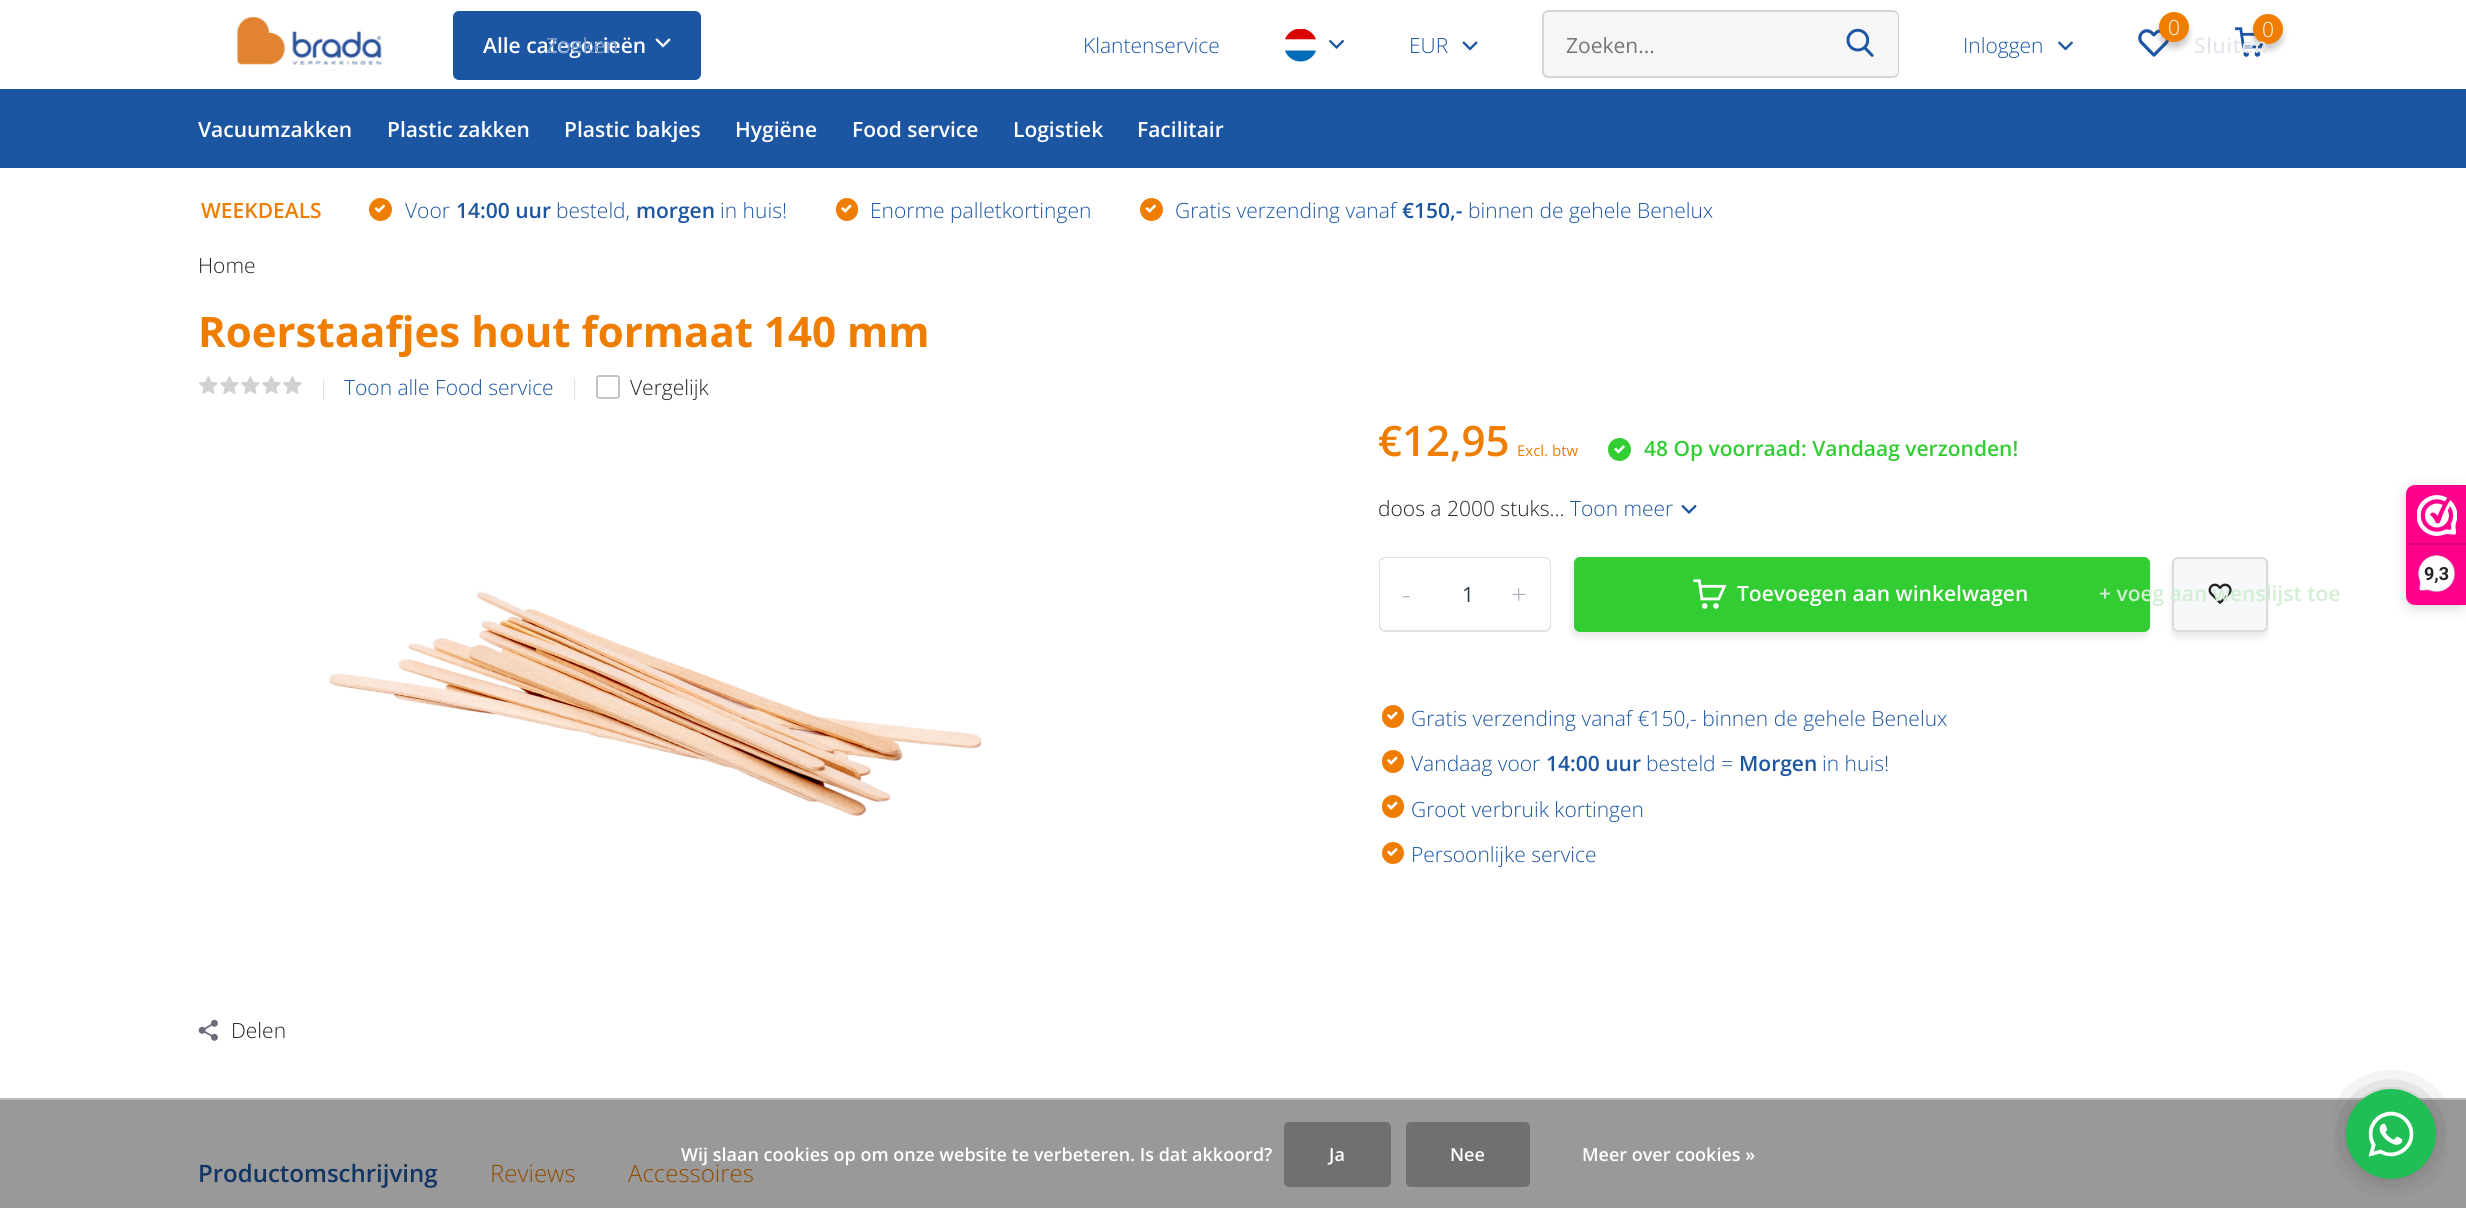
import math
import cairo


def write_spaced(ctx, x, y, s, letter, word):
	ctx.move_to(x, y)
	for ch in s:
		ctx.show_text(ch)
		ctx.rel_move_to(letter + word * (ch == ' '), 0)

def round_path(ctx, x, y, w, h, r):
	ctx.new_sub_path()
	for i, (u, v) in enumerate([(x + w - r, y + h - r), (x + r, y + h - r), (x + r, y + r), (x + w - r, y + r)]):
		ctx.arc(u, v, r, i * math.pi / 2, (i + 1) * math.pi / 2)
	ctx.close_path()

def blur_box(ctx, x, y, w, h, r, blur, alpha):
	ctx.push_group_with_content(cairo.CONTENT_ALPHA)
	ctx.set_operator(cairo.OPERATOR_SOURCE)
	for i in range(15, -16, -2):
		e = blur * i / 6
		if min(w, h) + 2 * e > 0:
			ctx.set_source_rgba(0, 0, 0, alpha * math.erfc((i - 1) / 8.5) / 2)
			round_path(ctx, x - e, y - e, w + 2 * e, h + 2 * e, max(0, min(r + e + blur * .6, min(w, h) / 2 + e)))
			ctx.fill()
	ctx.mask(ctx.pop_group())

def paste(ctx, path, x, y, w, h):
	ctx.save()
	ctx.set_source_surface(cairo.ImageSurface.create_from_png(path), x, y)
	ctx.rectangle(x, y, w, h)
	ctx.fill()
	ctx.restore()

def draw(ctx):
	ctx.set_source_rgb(1, 1, 1)
	ctx.paint()
	ctx.set_source_rgb(0.6, 0.6, 0.6)
	ctx.rectangle(0, 1100, 2466, 108)
	ctx.fill()
	paste(ctx, 'media/1.png', 236, 16, 146, 55)
	ctx.set_source_rgb(0.11, 0.337, 0.639)
	round_path(ctx, 453, 11, 248, 69, 6)
	ctx.fill()
	ctx.select_font_face('Open Sans SemiBold')
	ctx.set_font_size(21)
	ctx.set_source_rgb(1, 1, 1)
	ctx.move_to(483, 53)
	ctx.show_text('Alle categorieën')
	paste(ctx, 'media/2.png', 655, 38, 16, 10)
	ctx.select_font_face('Open Sans Light')
	ctx.set_source_rgb(0.11, 0.337, 0.639)
	ctx.move_to(1083, 53)
	ctx.show_text('Klantenservice')
	paste(ctx, 'media/3.png', 1285, 29, 31, 33)
	paste(ctx, 'media/4.png', 1329, 40, 15, 9)
	ctx.move_to(1409, 53)
	ctx.show_text('EUR')
	paste(ctx, 'media/5.png', 1462, 41, 16, 10)
	ctx.set_source_rgb(0.961, 0.961, 0.961)
	ctx.new_path()
	ctx.move_to(1548, 11)
	ctx.line_to(1824, 11)
	ctx.line_to(1824, 78)
	ctx.line_to(1548, 78)
	ctx.curve_to(1544.5, 78, 1542, 75.5, 1542, 72)
	ctx.line_to(1542, 17)
	ctx.curve_to(1542, 13.5, 1544.5, 11, 1548, 11)
	ctx.close_path()
	ctx.fill()
	ctx.set_source_rgb(0.831, 0.831, 0.831)
	ctx.set_fill_rule(cairo.FILL_RULE_EVEN_ODD)
	ctx.new_path()
	ctx.move_to(1548, 10)
	ctx.line_to(1824, 10)
	ctx.line_to(1824, 78)
	ctx.line_to(1548, 78)
	ctx.curve_to(1545, 78, 1542, 75, 1542, 72)
	ctx.line_to(1542, 16)
	ctx.curve_to(1542, 13, 1545, 10, 1548, 10)
	ctx.close_path()
	ctx.move_to(1548, 12)
	ctx.line_to(1824, 12)
	ctx.line_to(1824, 76)
	ctx.line_to(1548, 76)
	ctx.curve_to(1546, 76, 1544, 74, 1544, 72)
	ctx.line_to(1544, 16)
	ctx.curve_to(1544, 14, 1546, 12, 1548, 12)
	ctx.close_path()
	ctx.fill()
	ctx.select_font_face('Open Sans')
	ctx.set_source_rgb(0.459, 0.459, 0.459)
	ctx.move_to(1566, 53)
	ctx.show_text('Zoeken...')
	ctx.set_source_rgb(0.961, 0.961, 0.961)
	ctx.new_path()
	ctx.move_to(1824, 11)
	ctx.line_to(1893, 11)
	ctx.curve_to(1896.5, 11, 1899, 13.5, 1899, 17)
	ctx.line_to(1899, 72)
	ctx.curve_to(1899, 75.5, 1896.5, 78, 1893, 78)
	ctx.line_to(1824, 78)
	ctx.close_path()
	ctx.fill()
	ctx.set_source_rgb(0.831, 0.831, 0.831)
	ctx.new_path()
	ctx.move_to(1824, 10)
	ctx.line_to(1893, 10)
	ctx.curve_to(1896, 10, 1899, 13, 1899, 16)
	ctx.line_to(1899, 72)
	ctx.curve_to(1899, 75, 1896, 78, 1893, 78)
	ctx.line_to(1824, 78)
	ctx.close_path()
	ctx.move_to(1824, 12)
	ctx.line_to(1893, 12)
	ctx.curve_to(1895, 12, 1898, 14, 1898, 16)
	ctx.line_to(1898, 72)
	ctx.curve_to(1898, 74, 1895, 76, 1893, 76)
	ctx.line_to(1824, 76)
	ctx.close_path()
	ctx.fill()
	paste(ctx, 'media/6.png', 1846, 28, 28, 29)
	ctx.select_font_face('Open Sans Light')
	ctx.set_source_rgb(0.11, 0.337, 0.639)
	ctx.move_to(1963, 53)
	ctx.show_text('Inloggen')
	paste(ctx, 'media/7.png', 2058, 41, 15, 10)
	paste(ctx, 'media/8.png', 2138, 29, 31, 28)
	ctx.set_source_rgb(0.157, 0.157, 0.188)
	blur_box(ctx, 2159, 18, 30, 30, 15, 3, 0.25)
	ctx.set_source_rgb(0.937, 0.49, 0)
	ctx.arc(2174, 27, 15, 0, 2 * math.pi)
	ctx.fill()
	ctx.set_source_rgb(1, 1, 1)
	ctx.move_to(2168, 35)
	ctx.show_text('0')
	paste(ctx, 'media/9.png', 2235, 27, 29, 30)
	ctx.set_source_rgb(0.157, 0.157, 0.188)
	blur_box(ctx, 2253, 20, 30, 30, 15, 3, 0.25)
	ctx.set_source_rgb(0.937, 0.49, 0)
	ctx.arc(2268, 29, 15, 0, 2 * math.pi)
	ctx.fill()
	ctx.set_source_rgb(1, 1, 1)
	ctx.move_to(2262, 37)
	ctx.show_text('0')
	ctx.select_font_face('Open Sans')
	ctx.set_source_rgb(0.467, 0.604, 0.784)
	ctx.move_to(546, 53)
	ctx.show_text('Zoeken')
	ctx.select_font_face('Open Sans Medium')
	ctx.set_source_rgb(0.886, 0.902, 0.925)
	write_spaced(ctx, 2194, 53, 'Sluiten', 0.75, 0)
	ctx.set_source_rgb(0.11, 0.337, 0.639)
	ctx.rectangle(0, 89, 2466, 79)
	ctx.fill()
	ctx.select_font_face('Open Sans SemiBold')
	ctx.set_source_rgb(1, 1, 1)
	for x, y, s in [
		(198, 137, 'Vacuumzakken'),
		(387, 137, 'Plastic zakken'),
		(564, 137, 'Plastic bakjes'),
		(735, 137, 'Hygiëne'),
		(852, 137, 'Food service'),
		(1013, 137, 'Logistiek'),
		(1137, 137, 'Facilitair'),
	]:
		ctx.move_to(x, y)
		ctx.show_text(s)
	ctx.set_source_rgb(0.937, 0.49, 0)
	ctx.move_to(201, 218)
	ctx.show_text('WEEKDEALS')
	ctx.new_path()
	ctx.arc(380.5, 209.5, 11.5, 0, 2 * math.pi)
	ctx.fill()
	paste(ctx, 'media/10.png', 374, 204, 12, 9)
	ctx.select_font_face('Open Sans Light')
	ctx.set_source_rgb(0.11, 0.337, 0.639)
	ctx.move_to(405, 218)
	ctx.show_text('Voor')
	ctx.select_font_face('Open Sans SemiBold')
	ctx.move_to(456, 218)
	ctx.show_text('14:00 uur')
	ctx.select_font_face('Open Sans Light')
	ctx.move_to(556, 218)
	ctx.show_text('besteld,')
	ctx.select_font_face('Open Sans SemiBold')
	ctx.move_to(636, 218)
	ctx.show_text('morgen')
	ctx.select_font_face('Open Sans Light')
	ctx.move_to(720, 218)
	ctx.show_text('in huis!')
	ctx.set_source_rgb(0.937, 0.49, 0)
	round_path(ctx, 836, 198, 22, 23, 11)
	ctx.fill()
	paste(ctx, 'media/11.png', 841, 204, 11, 9)
	ctx.set_source_rgb(0.11, 0.337, 0.639)
	ctx.move_to(870, 218)
	ctx.show_text('Enorme palletkortingen')
	ctx.set_source_rgb(0.937, 0.49, 0)
	ctx.new_path()
	ctx.arc(1151.5, 209.5, 11.5, 0, 2 * math.pi)
	ctx.fill()
	paste(ctx, 'media/10.png', 1145, 204, 12, 9)
	ctx.set_source_rgb(0.11, 0.337, 0.639)
	ctx.move_to(1175, 218)
	ctx.show_text('Gratis verzending vanaf')
	ctx.select_font_face('Open Sans SemiBold')
	ctx.move_to(1402, 218)
	ctx.show_text('€150,-')
	ctx.select_font_face('Open Sans Light')
	ctx.move_to(1468, 218)
	ctx.show_text('binnen de gehele Benelux')
	ctx.set_source_rgb(0.137, 0.137, 0.137)
	ctx.move_to(198, 273)
	ctx.show_text('Home')
	ctx.select_font_face('Open Sans', cairo.FONT_SLANT_NORMAL, cairo.FONT_WEIGHT_BOLD)
	ctx.set_font_size(42)
	ctx.set_source_rgb(0.937, 0.49, 0)
	ctx.move_to(198, 347)
	ctx.show_text('Roerstaafjes hout formaat 140 mm')
	paste(ctx, 'media/12.png', 199, 376, 19, 18)
	paste(ctx, 'media/12.png', 220, 376, 19, 18)
	paste(ctx, 'media/12.png', 241, 376, 19, 18)
	paste(ctx, 'media/12.png', 262, 376, 19, 18)
	paste(ctx, 'media/12.png', 283, 376, 19, 18)
	ctx.select_font_face('Open Sans Light')
	ctx.set_font_size(21)
	ctx.set_source_rgb(0.855, 0.855, 0.855)
	ctx.move_to(318, 395)
	ctx.show_text('|')
	ctx.set_source_rgb(0.11, 0.337, 0.639)
	ctx.move_to(344, 395)
	ctx.show_text('Toon alle Food service')
	ctx.set_source_rgb(0.855, 0.855, 0.855)
	ctx.move_to(569, 395)
	ctx.show_text('|')
	round_path(ctx, 597, 376, 22, 22, 2)
	ctx.set_source_rgb(0.769, 0.769, 0.769)
	ctx.stroke()
	ctx.set_source_rgb(0.137, 0.137, 0.137)
	ctx.move_to(630, 395)
	ctx.show_text('Vergelijk')
	ctx.select_font_face('Open Sans SemiBold')
	ctx.set_font_size(42)
	ctx.set_source_rgb(0.937, 0.49, 0)
	ctx.move_to(1378, 456)
	ctx.show_text('€12,95')
	ctx.select_font_face('Open Sans')
	ctx.set_font_size(15)
	ctx.move_to(1517, 456)
	ctx.show_text('Excl. btw')
	ctx.set_source_rgb(0.196, 0.804, 0.196)
	ctx.new_path()
	ctx.arc(1619.5, 449.5, 11.5, 0, 2 * math.pi)
	ctx.fill()
	paste(ctx, 'media/13.png', 1614, 445, 11, 9)
	ctx.select_font_face('Open Sans SemiBold')
	ctx.set_font_size(21)
	ctx.move_to(1644, 456)
	ctx.show_text('48 Op voorraad: Vandaag verzonden!')
	ctx.select_font_face('Open Sans Light')
	ctx.set_source_rgb(0.137, 0.137, 0.137)
	ctx.move_to(1378, 516)
	ctx.show_text('doos a 2000 stuks...')
	ctx.set_source_rgb(0.11, 0.337, 0.639)
	ctx.move_to(1570, 516)
	ctx.show_text('Toon meer')
	paste(ctx, 'media/14.png', 1681, 505, 16, 9)
	round_path(ctx, 1380, 558, 170, 73, 5)
	ctx.set_source_rgb(0.886, 0.886, 0.886)
	ctx.stroke()
	ctx.set_source_rgb(1, 1, 1)
	round_path(ctx, 1380, 558, 170, 72, 6)
	ctx.fill()
	ctx.select_font_face('Open Sans')
	ctx.set_source_rgb(0.188, 0.235, 0.263)
	ctx.move_to(1462, 602)
	ctx.show_text('1')
	ctx.select_font_face('Open Sans Light')
	ctx.set_font_size(27)
	ctx.set_source_rgb(0.678, 0.678, 0.729)
	ctx.move_to(1402, 604)
	ctx.show_text('-')
	ctx.move_to(1511, 604)
	ctx.show_text('+')
	ctx.set_source_rgb(0, 0, 0)
	blur_box(ctx, 1572, 563, 576, 75, 6, 3, 0.08)
	ctx.set_source_rgb(0.196, 0.804, 0.196)
	round_path(ctx, 1574, 557, 576, 75, 6)
	ctx.fill()
	paste(ctx, 'media/15.png', 1693, 579, 34, 30)
	ctx.select_font_face('Open Sans SemiBold')
	ctx.set_font_size(21)
	ctx.set_source_rgb(1, 1, 1)
	ctx.move_to(1737, 601)
	ctx.show_text('Toevoegen aan winkelwagen')
	ctx.set_source_rgb(0, 0, 0)
	blur_box(ctx, 2171, 563, 96, 75, 6, 3, 0.08)
	ctx.set_source_rgb(0.961, 0.969, 0.98)
	round_path(ctx, 2173, 558, 94, 73, 5)
	ctx.fill_preserve()
	ctx.set_source_rgb(0.855, 0.855, 0.855)
	ctx.stroke()
	paste(ctx, 'media/16.png', 2208, 583, 24, 21)
	ctx.set_source_rgb(0.82, 0.933, 0.827)
	ctx.move_to(2099, 601)
	ctx.show_text('+ voeg aan wenslijst toe')
	ctx.set_source_rgb(0.937, 0.49, 0)
	round_path(ctx, 1382, 705, 22, 23, 11)
	ctx.fill()
	paste(ctx, 'media/11.png', 1387, 711, 11, 9)
	ctx.select_font_face('Open Sans Light')
	ctx.set_source_rgb(0.11, 0.337, 0.639)
	ctx.move_to(1411, 726)
	ctx.show_text('Gratis verzending vanaf €150,- binnen de gehele Benelux')
	ctx.set_source_rgb(0.937, 0.49, 0)
	round_path(ctx, 1382, 750, 22, 23, 11)
	ctx.fill()
	paste(ctx, 'media/11.png', 1387, 756, 11, 9)
	ctx.set_source_rgb(0.11, 0.337, 0.639)
	ctx.move_to(1411, 771)
	ctx.show_text('Vandaag voor')
	ctx.select_font_face('Open Sans SemiBold')
	ctx.move_to(1546, 771)
	ctx.show_text('14:00 uur')
	ctx.select_font_face('Open Sans Light')
	ctx.move_to(1646, 771)
	ctx.show_text('besteld =')
	ctx.select_font_face('Open Sans SemiBold')
	ctx.move_to(1739, 771)
	ctx.show_text('Morgen')
	ctx.select_font_face('Open Sans Light')
	ctx.move_to(1822, 771)
	ctx.show_text('in huis!')
	ctx.set_source_rgb(0.937, 0.49, 0)
	round_path(ctx, 1382, 795, 22, 23, 11)
	ctx.fill()
	paste(ctx, 'media/11.png', 1387, 801, 11, 9)
	ctx.set_source_rgb(0.11, 0.337, 0.639)
	ctx.move_to(1411, 817)
	ctx.show_text('Groot verbruik kortingen')
	ctx.set_source_rgb(0.937, 0.49, 0)
	ctx.new_path()
	ctx.arc(1393, 853, 11, 0, 2 * math.pi)
	ctx.fill()
	paste(ctx, 'media/17.png', 1387, 848, 11, 9)
	ctx.set_source_rgb(0.11, 0.337, 0.639)
	ctx.move_to(1411, 862)
	ctx.show_text('Persoonlijke service')
	paste(ctx, 'media/18.png', 329, 591, 653, 226)
	paste(ctx, 'media/19.png', 198, 1019, 20, 22)
	ctx.set_source_rgb(0.137, 0.137, 0.137)
	ctx.move_to(231, 1038)
	ctx.show_text('Delen')
	ctx.set_source_rgb(0, 0, 0)
	blur_box(ctx, 2406, 488, 60, 120, 9, 7.5, 0.15)
	ctx.set_source_rgb(0.996, 0, 0.549)
	ctx.new_path()
	ctx.move_to(2415, 485)
	ctx.line_to(2466, 485)
	ctx.line_to(2466, 605)
	ctx.line_to(2415, 605)
	ctx.curve_to(2410, 605, 2406, 601, 2406, 596)
	ctx.line_to(2406, 494)
	ctx.curve_to(2406, 489, 2410, 485, 2415, 485)
	ctx.close_path()
	ctx.fill()
	paste(ctx, 'media/20.png', 2417, 495, 40, 41)
	ctx.set_source_rgb(0.847, 0, 0.467)
	ctx.rectangle(2408, 543, 58, 2)
	ctx.fill()
	paste(ctx, 'media/21.png', 2418, 555, 38, 38)
	ctx.select_font_face('Roboto', cairo.FONT_SLANT_NORMAL, cairo.FONT_WEIGHT_BOLD)
	ctx.set_font_size(18)
	ctx.set_source_rgb(0.137, 0.137, 0.137)
	ctx.move_to(2424, 580)
	ctx.show_text('9,3')
	ctx.set_source_rgb(0.733, 0.733, 0.733)
	ctx.rectangle(0, 1098, 2466, 2)
	ctx.fill()
	ctx.select_font_face('Open Sans SemiBold')
	ctx.set_source_rgb(1, 1, 1)
	ctx.move_to(681, 1161)
	ctx.show_text('Wij slaan cookies op om onze website te verbeteren. Is dat akkoord?')
	ctx.set_source_rgb(0.439, 0.439, 0.439)
	round_path(ctx, 1284, 1122, 107, 65, 5)
	ctx.fill()
	ctx.set_source_rgb(1, 1, 1)
	ctx.move_to(1329, 1161)
	ctx.show_text('Ja')
	ctx.set_source_rgb(0.439, 0.439, 0.439)
	round_path(ctx, 1406, 1122, 124, 65, 5)
	ctx.fill()
	ctx.set_source_rgb(1, 1, 1)
	ctx.move_to(1450, 1161)
	ctx.show_text('Nee')
	ctx.move_to(1582, 1161)
	ctx.show_text('Meer over cookies »')
	paste(ctx, 'media/22.png', 2333, 1070, 115, 127)
	ctx.set_font_size(24)
	ctx.set_source_rgb(0.067, 0.204, 0.384)
	ctx.move_to(198, 1182)
	ctx.show_text('Productomschrijving')
	ctx.select_font_face('Open Sans Light')
	ctx.set_source_rgb(0.561, 0.294, 0)
	ctx.move_to(490, 1182)
	ctx.show_text('Reviews')
	ctx.move_to(628, 1182)
	ctx.show_text('Accessoires')


surface = cairo.ImageSurface(cairo.FORMAT_RGB24, 2466, 1208)
ctx = cairo.Context(surface)
options = cairo.FontOptions()
options.set_hint_metrics(cairo.HINT_METRICS_OFF)
options.set_hint_style(cairo.HINT_STYLE_NONE)
ctx.set_font_options(options)
ctx.set_miter_limit(4)
draw(ctx)
surface.write_to_png('image.png')
